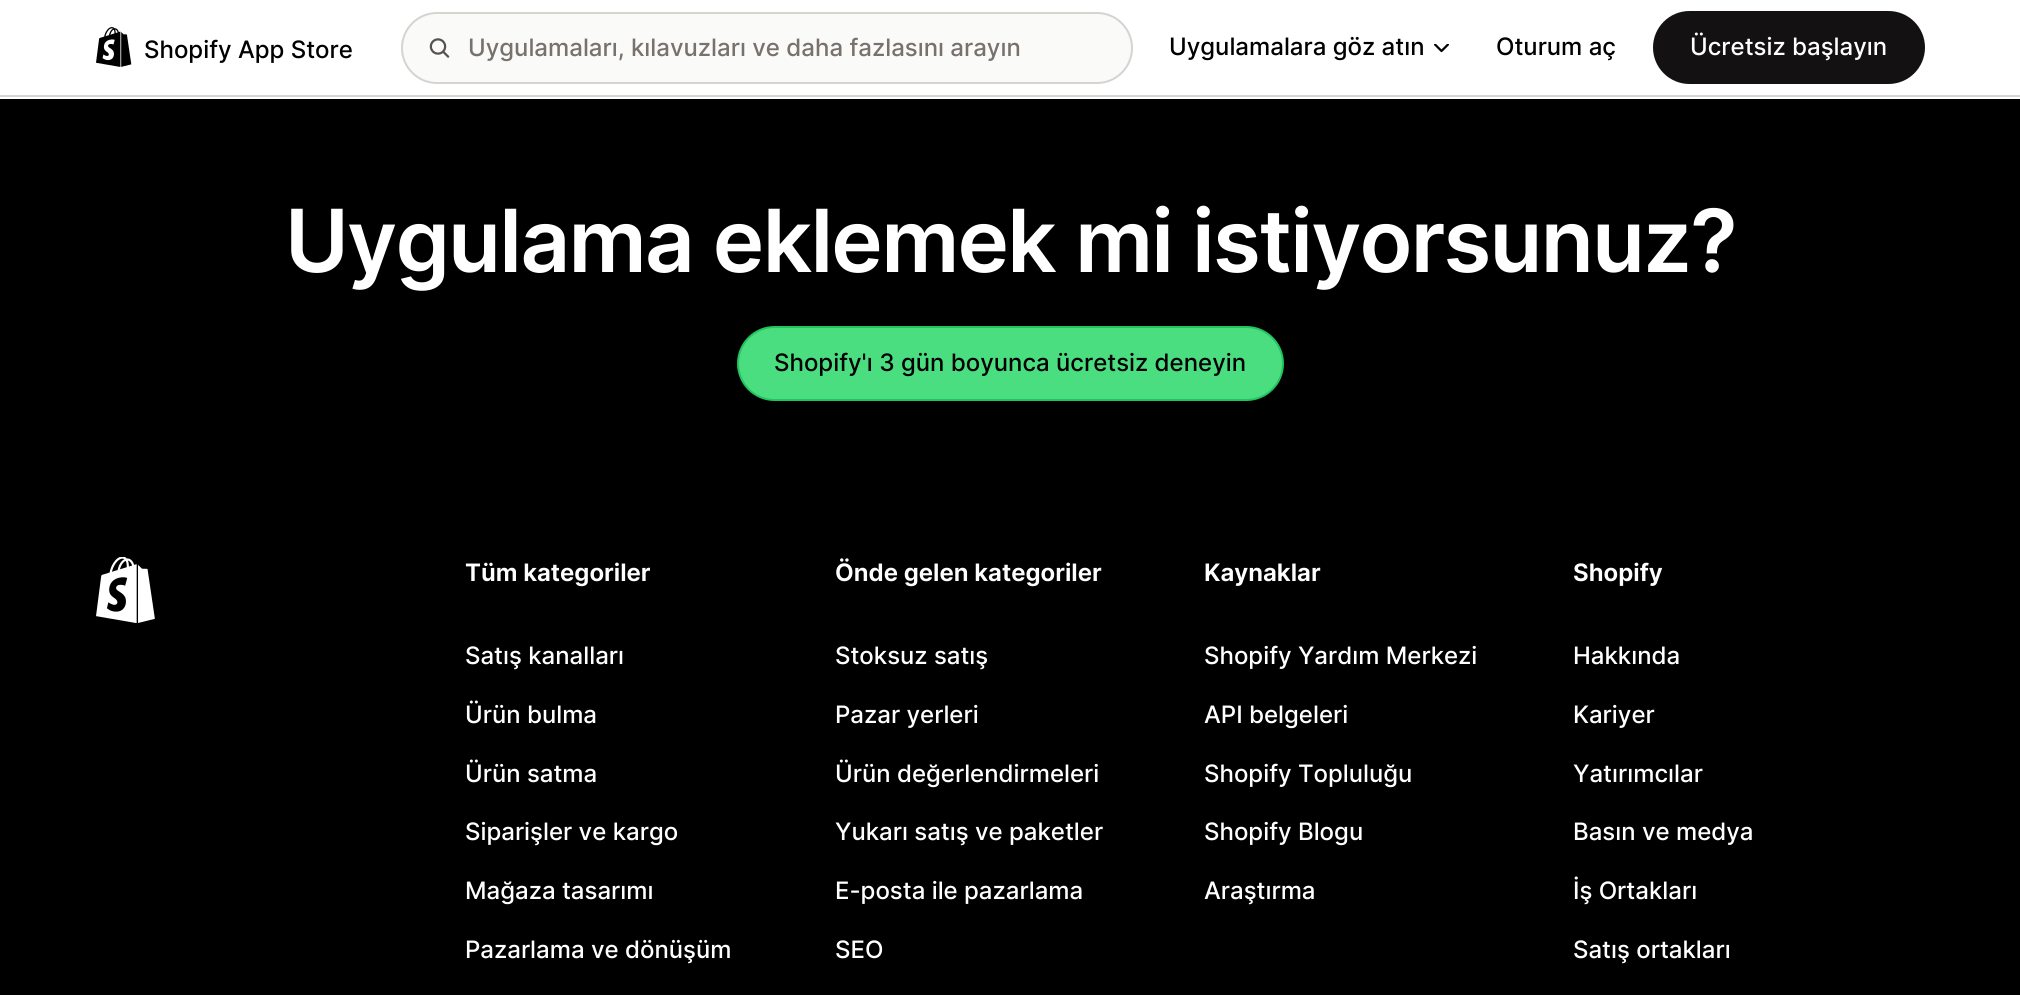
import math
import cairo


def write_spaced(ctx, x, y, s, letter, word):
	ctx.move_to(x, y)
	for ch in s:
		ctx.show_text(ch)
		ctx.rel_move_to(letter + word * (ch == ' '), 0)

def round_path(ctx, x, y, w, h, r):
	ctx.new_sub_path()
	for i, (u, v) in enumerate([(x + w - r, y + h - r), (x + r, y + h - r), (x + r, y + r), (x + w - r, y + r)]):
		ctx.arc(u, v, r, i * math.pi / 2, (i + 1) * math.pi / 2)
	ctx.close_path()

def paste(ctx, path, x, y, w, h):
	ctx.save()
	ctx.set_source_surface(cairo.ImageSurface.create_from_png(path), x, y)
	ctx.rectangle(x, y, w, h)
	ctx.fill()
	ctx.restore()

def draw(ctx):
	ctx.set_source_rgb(1, 1, 1)
	ctx.paint()
	ctx.set_source_rgb(0.839, 0.827, 0.82)
	ctx.rectangle(0, 95, 2020, 2)
	ctx.fill()
	paste(ctx, 'media/1.png', 96, 27, 36, 40)
	ctx.select_font_face('Inter Medium')
	ctx.set_font_size(24)
	ctx.set_source_rgb(0, 0, 0)
	ctx.move_to(144, 58)
	ctx.show_text('Shopify App Store')
	ctx.set_source_rgb(0.98, 0.98, 0.976)
	round_path(ctx, 402, 13, 730, 70, 35)
	ctx.fill_preserve()
	ctx.set_source_rgb(0.839, 0.827, 0.82)
	ctx.stroke()
	paste(ctx, 'media/2.png', 429, 38, 21, 20)
	ctx.set_source_rgb(0.471, 0.447, 0.427)
	ctx.move_to(468, 56)
	ctx.show_text('Uygulamaları, kılavuzları ve daha fazlasını arayın')
	ctx.set_source_rgb(0, 0, 0)
	ctx.move_to(1169, 55)
	ctx.show_text('Uygulamalara göz atın')
	paste(ctx, 'media/3.png', 1434, 44, 15, 9)
	ctx.move_to(1496, 55)
	ctx.show_text('Oturum aç')
	ctx.set_source_rgb(0.075, 0.067, 0.067)
	round_path(ctx, 1653, 11, 272, 73, 36.5)
	ctx.fill()
	ctx.set_source_rgb(1, 1, 1)
	ctx.move_to(1690, 55)
	ctx.show_text('Ücretsiz başlayın')
	ctx.set_source_rgb(0, 0, 0)
	ctx.rectangle(0, 99, 2020, 896)
	ctx.fill()
	ctx.select_font_face('Inter SemiBold')
	ctx.set_font_size(87)
	ctx.set_source_rgb(1, 1, 1)
	write_spaced(ctx, 285, 272, 'Uygulama eklemek mi istiyorsunuz?', -1.75, 0)
	ctx.set_source_rgb(0.29, 0.871, 0.502)
	round_path(ctx, 738, 327, 545, 73, 36.5)
	ctx.fill_preserve()
	ctx.set_source_rgb(0.129, 0.769, 0.365)
	ctx.stroke()
	ctx.select_font_face('Inter Medium')
	ctx.set_font_size(24)
	ctx.set_source_rgb(0, 0, 0)
	ctx.move_to(774, 371)
	ctx.show_text('Shopify\'ı 3 gün boyunca ücretsiz deneyin')
	paste(ctx, 'media/4.png', 96, 557, 59, 66)
	ctx.select_font_face('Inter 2 SemiBold')
	ctx.set_source_rgb(1, 1, 1)
	ctx.move_to(465, 581)
	ctx.show_text('Tüm kategoriler')
	ctx.select_font_face('Inter Medium')
	for x, y, s in [
		(465, 664, 'Satış kanalları'),
		(465, 723, 'Ürün bulma'),
		(465, 782, 'Ürün satma'),
		(465, 840, 'Siparişler ve kargo'),
		(465, 899, 'Mağaza tasarımı'),
		(465, 958, 'Pazarlama ve dönüşüm'),
	]:
		ctx.move_to(x, y)
		ctx.show_text(s)
	ctx.select_font_face('Inter 2 SemiBold')
	ctx.move_to(835, 581)
	ctx.show_text('Önde gelen kategoriler')
	ctx.select_font_face('Inter Medium')
	for x, y, s in [
		(835, 664, 'Stoksuz satış'),
		(835, 723, 'Pazar yerleri'),
		(835, 782, 'Ürün değerlendirmeleri'),
		(835, 840, 'Yukarı satış ve paketler'),
		(835, 899, 'E-posta ile pazarlama'),
		(835, 958, 'SEO'),
	]:
		ctx.move_to(x, y)
		ctx.show_text(s)
	ctx.select_font_face('Inter 2 SemiBold')
	ctx.move_to(1204, 581)
	ctx.show_text('Kaynaklar')
	ctx.select_font_face('Inter Medium')
	for x, y, s in [
		(1204, 664, 'Shopify Yardım Merkezi'),
		(1204, 723, 'API belgeleri'),
		(1204, 782, 'Shopify Topluluğu'),
		(1204, 840, 'Shopify Blogu'),
		(1204, 899, 'Araştırma'),
	]:
		ctx.move_to(x, y)
		ctx.show_text(s)
	ctx.select_font_face('Inter 2 SemiBold')
	ctx.move_to(1573, 581)
	ctx.show_text('Shopify')
	ctx.select_font_face('Inter Medium')
	for x, y, s in [
		(1573, 664, 'Hakkında'),
		(1573, 723, 'Kariyer'),
		(1573, 782, 'Yatırımcılar'),
		(1573, 840, 'Basın ve medya'),
		(1573, 899, 'İş Ortakları'),
		(1573, 958, 'Satış ortakları'),
	]:
		ctx.move_to(x, y)
		ctx.show_text(s)


surface = cairo.ImageSurface(cairo.FORMAT_RGB24, 2020, 995)
ctx = cairo.Context(surface)
options = cairo.FontOptions()
options.set_hint_metrics(cairo.HINT_METRICS_OFF)
options.set_hint_style(cairo.HINT_STYLE_NONE)
ctx.set_font_options(options)
ctx.set_miter_limit(4)
draw(ctx)
surface.write_to_png('image.png')
